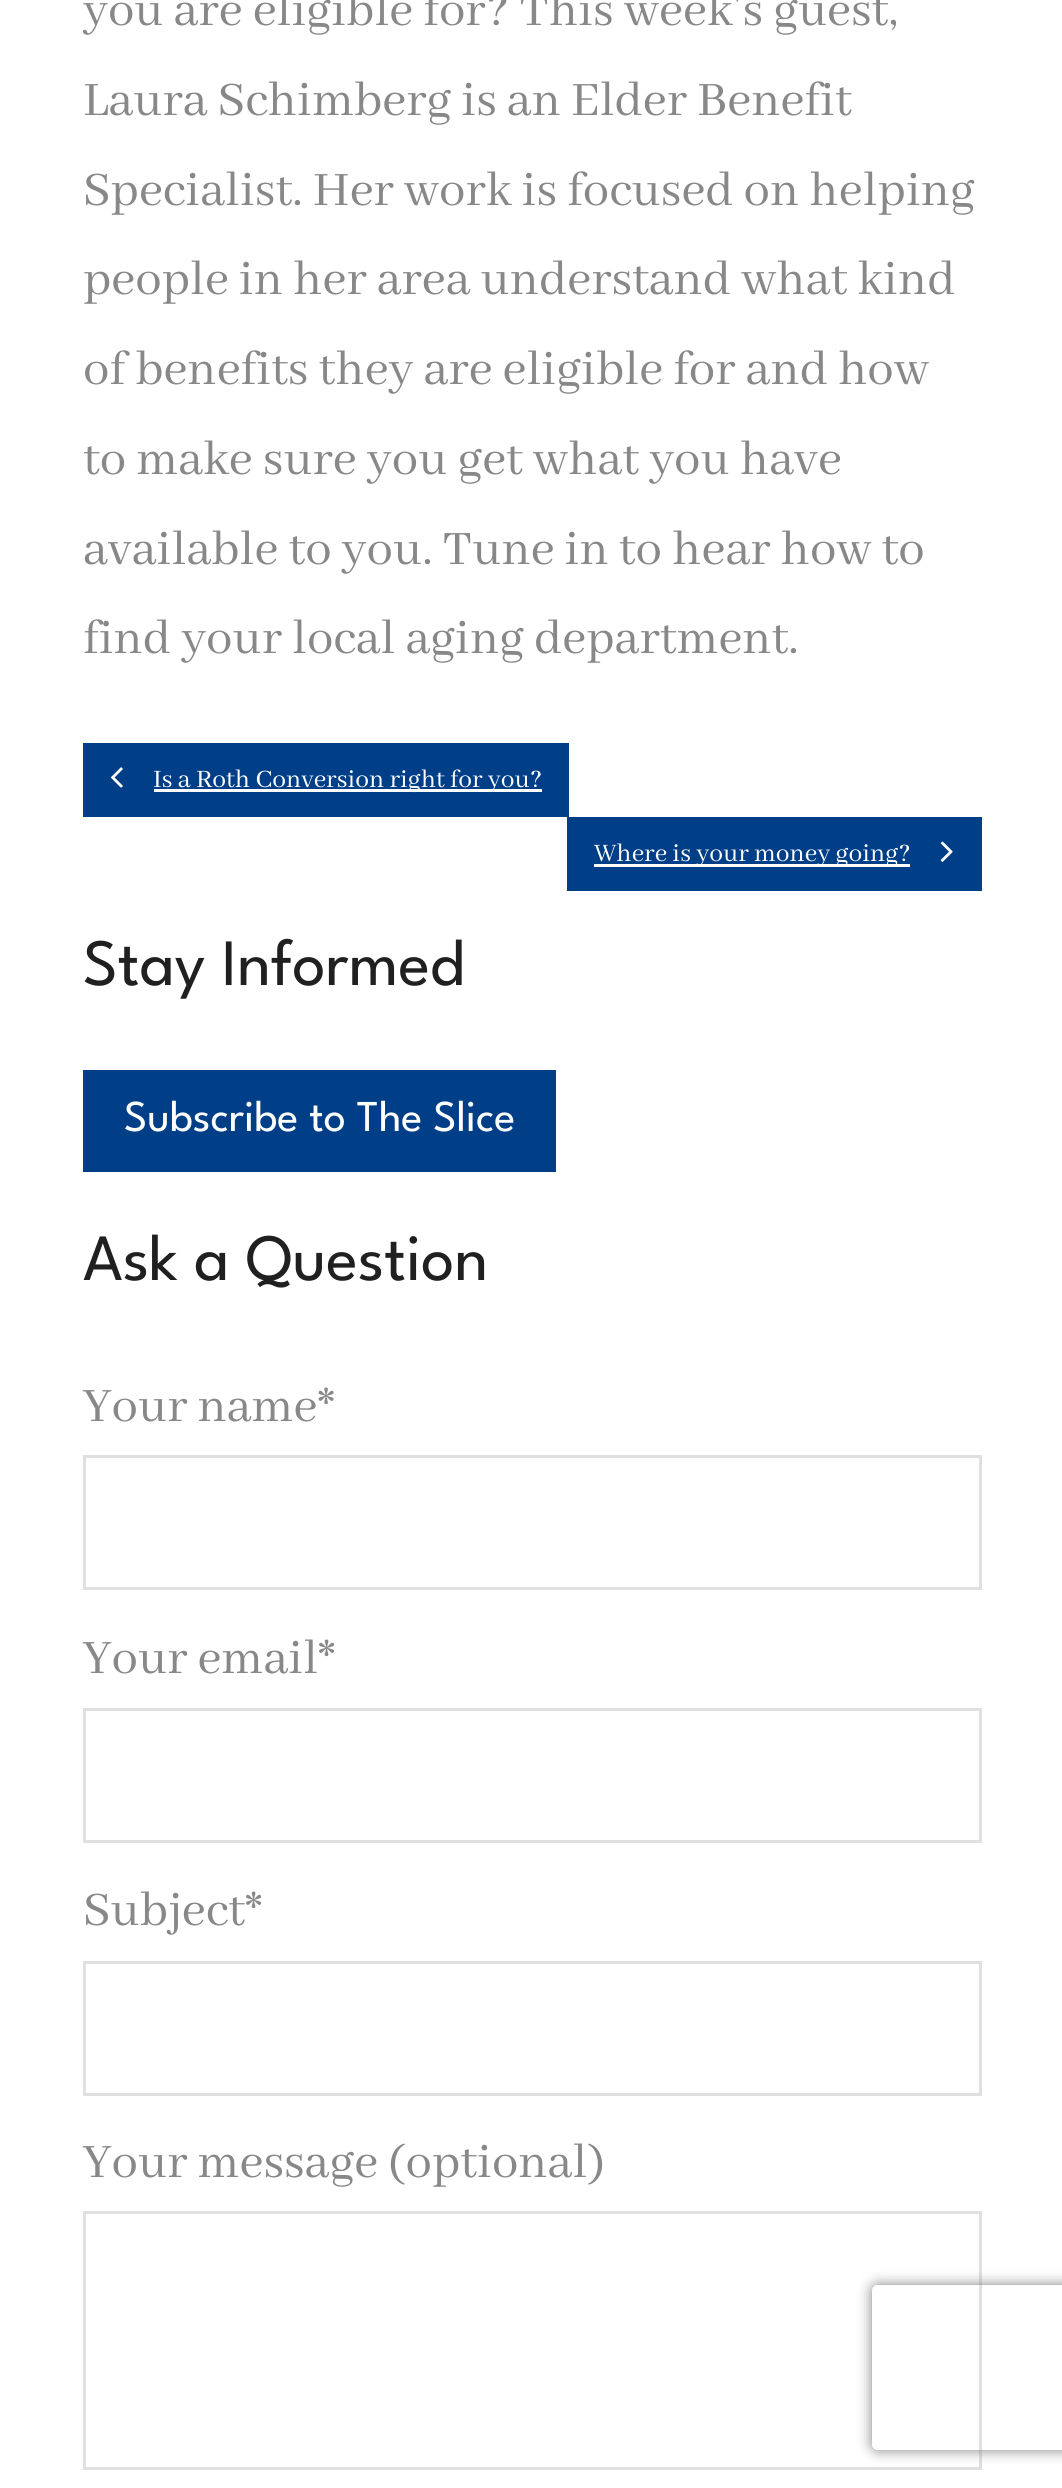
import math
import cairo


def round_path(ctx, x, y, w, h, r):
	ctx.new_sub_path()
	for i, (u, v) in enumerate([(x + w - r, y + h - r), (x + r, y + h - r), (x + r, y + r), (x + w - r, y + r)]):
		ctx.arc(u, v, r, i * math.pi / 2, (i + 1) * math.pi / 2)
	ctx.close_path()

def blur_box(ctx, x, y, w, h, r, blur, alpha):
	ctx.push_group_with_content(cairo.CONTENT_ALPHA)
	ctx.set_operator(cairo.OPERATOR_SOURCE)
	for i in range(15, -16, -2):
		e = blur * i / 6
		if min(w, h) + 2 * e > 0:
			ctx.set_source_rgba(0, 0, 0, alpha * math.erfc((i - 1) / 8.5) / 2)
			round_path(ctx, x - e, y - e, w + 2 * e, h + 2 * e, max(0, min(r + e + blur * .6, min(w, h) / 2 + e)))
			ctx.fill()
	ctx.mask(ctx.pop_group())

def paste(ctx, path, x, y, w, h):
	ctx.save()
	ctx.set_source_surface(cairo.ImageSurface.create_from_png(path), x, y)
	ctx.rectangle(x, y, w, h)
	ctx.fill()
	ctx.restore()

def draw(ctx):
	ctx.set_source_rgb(1, 1, 1)
	ctx.paint()
	ctx.select_font_face('Abhaya Libre')
	ctx.set_font_size(52.75)
	ctx.set_source_rgb(0.533, 0.533, 0.533)
	for x, y, s in [
		(83, 25, 'you are eligible for? This week’s guest,'),
		(83, 115, 'Laura Schimberg is an Elder Benefit'),
		(83, 205, 'Specialist. Her work is focused on helping'),
		(83, 294, 'people in her area understand what kind'),
		(83, 384, 'of benefits they are eligible for and how'),
		(83, 474, 'to make sure you get what you have'),
		(83, 564, 'available to you. Tune in to hear how to'),
		(83, 653, 'find your local aging department.'),
	]:
		ctx.move_to(x, y)
		ctx.show_text(s)
	ctx.set_source_rgb(0, 0.247, 0.533)
	ctx.rectangle(83, 743, 486, 74)
	ctx.fill()
	paste(ctx, 'media/1.png', 111, 767, 12, 21)
	ctx.set_source_rgb(1, 1, 1)
	ctx.rectangle(154, 789, 388, 3)
	ctx.fill()
	ctx.set_font_size(27.5)
	ctx.move_to(153, 787)
	ctx.show_text('Is a Roth Conversion right for you?')
	ctx.set_source_rgb(0, 0.247, 0.533)
	ctx.rectangle(567, 817, 415, 74)
	ctx.fill()
	ctx.set_source_rgb(1, 1, 1)
	ctx.rectangle(594, 864, 316, 3)
	ctx.fill()
	ctx.move_to(594, 861)
	ctx.show_text('Where is your money going?')
	paste(ctx, 'media/2.png', 940, 841, 13, 21)
	ctx.select_font_face('League Spartan')
	ctx.set_font_size(66)
	ctx.set_source_rgb(0.125, 0.125, 0.125)
	ctx.move_to(83, 985)
	ctx.show_text('Stay Informed')
	ctx.set_source_rgb(0, 0.247, 0.533)
	ctx.rectangle(83, 1070, 473, 102)
	ctx.fill()
	ctx.set_font_size(44)
	ctx.set_source_rgb(1, 1, 1)
	ctx.move_to(124, 1131)
	ctx.show_text('Subscribe to The Slice')
	ctx.set_font_size(66)
	ctx.set_source_rgb(0.125, 0.125, 0.125)
	ctx.move_to(83, 1280)
	ctx.show_text('Ask a Question')
	ctx.select_font_face('Abhaya Libre')
	ctx.set_font_size(52.75)
	ctx.set_source_rgb(0.533, 0.533, 0.533)
	ctx.move_to(83, 1421)
	ctx.show_text('Your name*')
	ctx.rectangle(84.5, 1456.5, 896, 132)
	ctx.set_source_rgb(0.878, 0.878, 0.878)
	ctx.set_line_width(3)
	ctx.stroke()
	ctx.set_source_rgb(0.533, 0.533, 0.533)
	ctx.move_to(83, 1673)
	ctx.show_text('Your email*')
	ctx.rectangle(84.5, 1709.5, 896, 132)
	ctx.set_source_rgb(0.878, 0.878, 0.878)
	ctx.stroke()
	ctx.set_source_rgb(0.533, 0.533, 0.533)
	ctx.move_to(83, 1925)
	ctx.show_text('Subject*')
	ctx.rectangle(84.5, 1962.5, 896, 132)
	ctx.set_source_rgb(0.878, 0.878, 0.878)
	ctx.stroke()
	ctx.set_source_rgb(0.533, 0.533, 0.533)
	ctx.move_to(83, 2177)
	ctx.show_text('Your message (optional)')
	ctx.rectangle(84.5, 2212.5, 896, 256)
	ctx.set_source_rgb(0.878, 0.878, 0.878)
	ctx.stroke()
	ctx.save()
	ctx.set_fill_rule(cairo.FILL_RULE_EVEN_ODD)
	ctx.new_path()
	ctx.move_to(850, 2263)
	ctx.line_to(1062, 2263)
	ctx.line_to(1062, 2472)
	ctx.line_to(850, 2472)
	ctx.close_path()
	ctx.move_to(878, 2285)
	ctx.line_to(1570, 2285)
	ctx.curve_to(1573.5, 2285, 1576, 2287.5, 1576, 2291)
	ctx.line_to(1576, 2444)
	ctx.curve_to(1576, 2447.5, 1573.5, 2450, 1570, 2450)
	ctx.line_to(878, 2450)
	ctx.curve_to(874.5, 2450, 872, 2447.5, 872, 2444)
	ctx.line_to(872, 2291)
	ctx.curve_to(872, 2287.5, 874.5, 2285, 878, 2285)
	ctx.close_path()
	ctx.clip()
	ctx.set_source_rgb(0.502, 0.502, 0.502)
	blur_box(ctx, 872, 2285, 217, 165, 6, 7, 1)
	ctx.restore()


surface = cairo.ImageSurface(cairo.FORMAT_RGB24, 1062, 2488)
ctx = cairo.Context(surface)
options = cairo.FontOptions()
options.set_hint_metrics(cairo.HINT_METRICS_OFF)
options.set_hint_style(cairo.HINT_STYLE_NONE)
ctx.set_font_options(options)
ctx.set_miter_limit(4)
draw(ctx)
surface.write_to_png('image.png')
